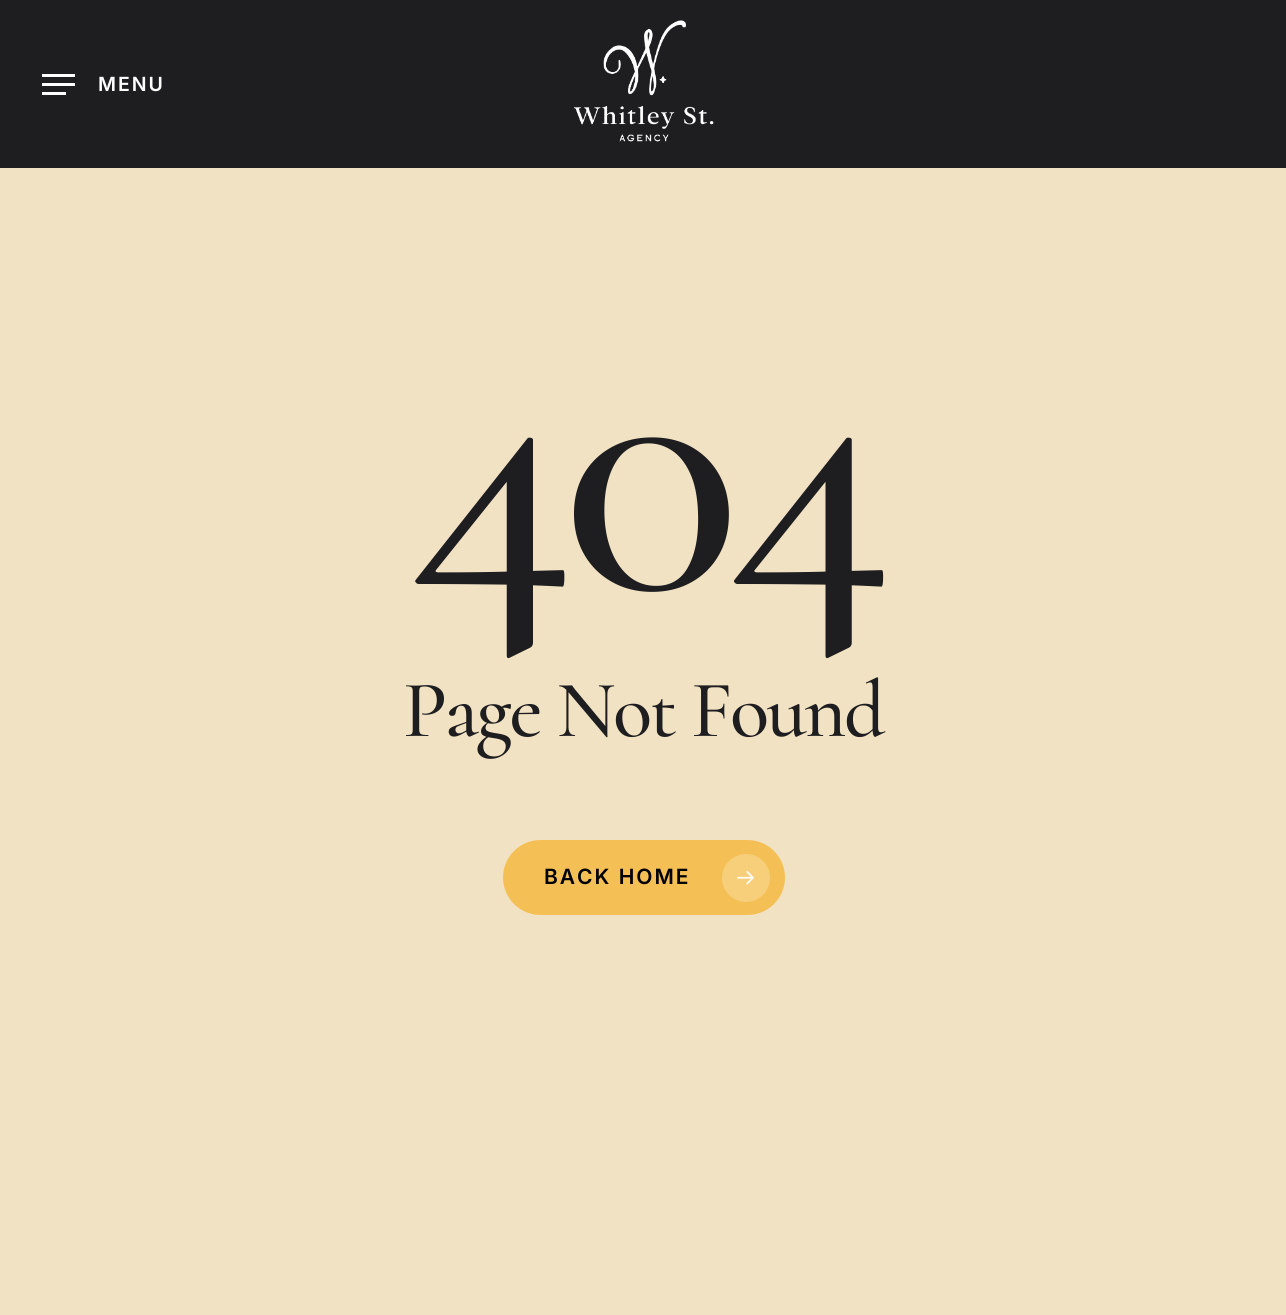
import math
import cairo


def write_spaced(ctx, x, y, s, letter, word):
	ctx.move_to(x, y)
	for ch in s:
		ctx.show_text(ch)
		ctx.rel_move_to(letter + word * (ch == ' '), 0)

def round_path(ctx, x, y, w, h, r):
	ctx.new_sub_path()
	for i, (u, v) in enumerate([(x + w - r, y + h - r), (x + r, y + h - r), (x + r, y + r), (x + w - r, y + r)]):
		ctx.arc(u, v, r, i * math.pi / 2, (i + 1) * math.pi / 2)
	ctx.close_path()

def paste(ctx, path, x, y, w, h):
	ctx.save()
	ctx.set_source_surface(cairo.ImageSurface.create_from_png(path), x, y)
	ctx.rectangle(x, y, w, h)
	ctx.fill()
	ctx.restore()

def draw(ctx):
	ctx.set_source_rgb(0.949, 0.886, 0.769)
	ctx.paint()
	ctx.set_source_rgb(0.118, 0.118, 0.125)
	ctx.rectangle(0, 0, 1286, 168)
	ctx.fill()
	ctx.set_source_rgb(1, 1, 1)
	ctx.rectangle(42, 74, 33, 3)
	ctx.rectangle(42, 92, 24, 3)
	ctx.rectangle(42, 83, 33, 3)
	ctx.fill()
	ctx.select_font_face('Inter SemiBold')
	ctx.set_font_size(19.5)
	write_spaced(ctx, 98, 91, 'MENU', 2, 0)
	paste(ctx, 'media/1.png', 573, 20, 141, 122)
	ctx.select_font_face('Cormorant Medium')
	ctx.set_font_size(375)
	ctx.set_source_rgb(0.118, 0.118, 0.125)
	write_spaced(ctx, 407, 587, '404', -15, 0)
	ctx.set_font_size(81)
	write_spaced(ctx, 403, 736, 'Page Not Found', -2.5, 0)
	ctx.set_source_rgb(0.957, 0.753, 0.333)
	round_path(ctx, 503, 840, 282, 75, 37.5)
	ctx.fill()
	ctx.select_font_face('Inter SemiBold')
	ctx.set_font_size(21)
	ctx.set_source_rgb(0, 0, 0)
	write_spaced(ctx, 544, 884, 'BACK HOME', 2, 0)
	ctx.set_source_rgb(0.965, 0.808, 0.478)
	ctx.new_path()
	ctx.arc(746, 878, 24, 0, 2 * math.pi)
	ctx.fill()
	paste(ctx, 'media/2.png', 737, 871, 17, 14)


surface = cairo.ImageSurface(cairo.FORMAT_RGB24, 1286, 1315)
ctx = cairo.Context(surface)
options = cairo.FontOptions()
options.set_hint_metrics(cairo.HINT_METRICS_OFF)
options.set_hint_style(cairo.HINT_STYLE_NONE)
ctx.set_font_options(options)
ctx.set_miter_limit(4)
draw(ctx)
surface.write_to_png('image.png')
